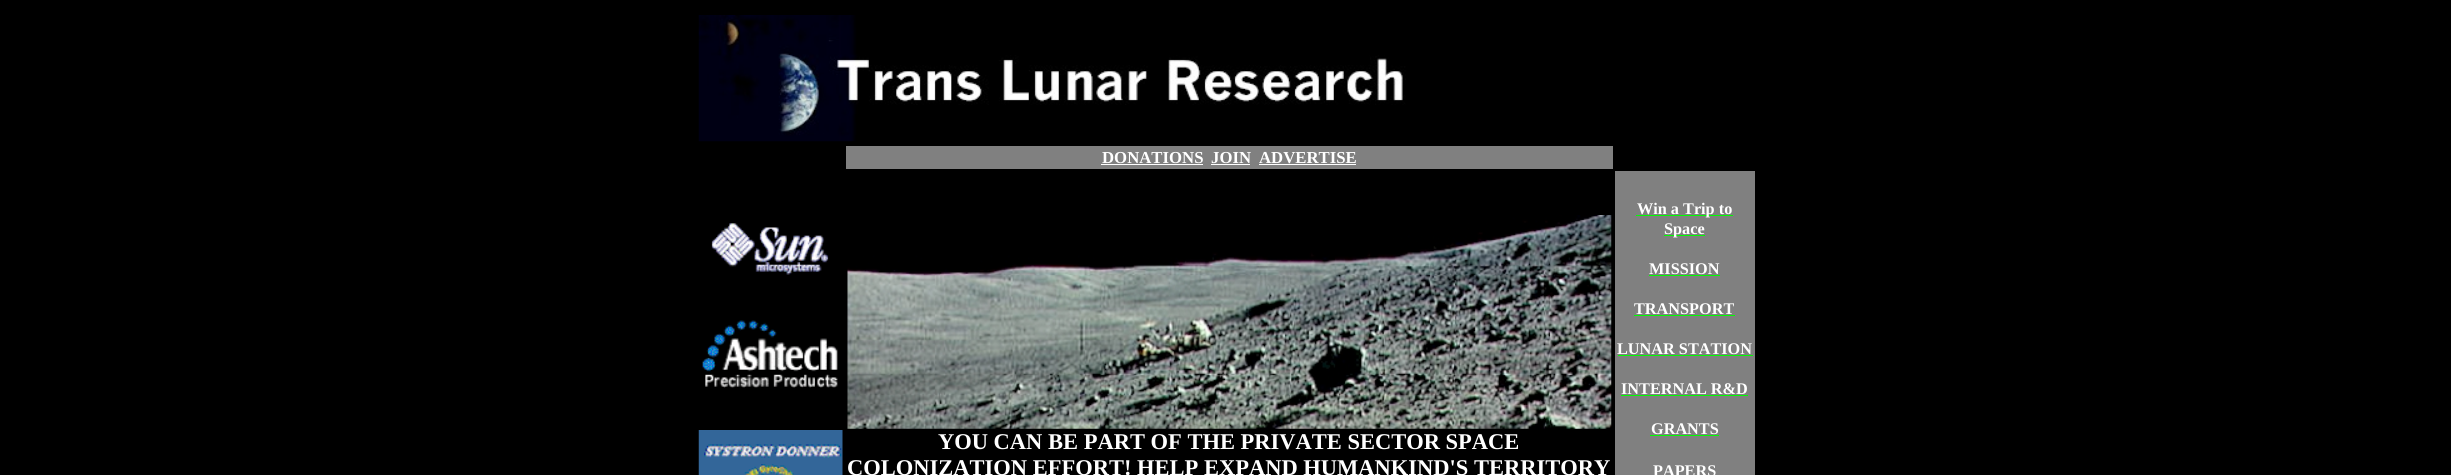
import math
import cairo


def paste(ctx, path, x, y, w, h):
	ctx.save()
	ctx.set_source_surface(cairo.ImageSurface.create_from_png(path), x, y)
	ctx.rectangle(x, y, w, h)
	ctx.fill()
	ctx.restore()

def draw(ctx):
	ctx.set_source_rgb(0, 0, 0)
	ctx.paint()
	paste(ctx, 'media/1.png', 698, 15, 708, 127)
	ctx.set_source_rgb(0.502, 0.502, 0.502)
	ctx.rectangle(846, 146, 767, 23)
	ctx.fill()
	ctx.select_font_face('Liberation Serif', cairo.FONT_SLANT_NORMAL, cairo.FONT_WEIGHT_BOLD)
	ctx.set_font_size(16.75)
	ctx.set_source_rgb(1, 1, 1)
	ctx.move_to(1102, 163)
	ctx.show_text('DONATIONS')
	ctx.rectangle(1101, 164, 102, 1)
	ctx.fill()
	ctx.move_to(1211, 163)
	ctx.show_text('JOIN')
	ctx.rectangle(1211, 164, 39, 1)
	ctx.fill()
	ctx.move_to(1259, 163)
	ctx.show_text('ADVERTISE')
	ctx.rectangle(1259, 164, 97, 1)
	ctx.fill()
	paste(ctx, 'media/2.png', 711, 223, 118, 52)
	paste(ctx, 'media/3.png', 702, 320, 136, 68)
	paste(ctx, 'media/4.png', 698, 430, 145, 45)
	paste(ctx, 'media/5.png', 847, 215, 765, 214)
	ctx.set_font_size(22.5)
	ctx.move_to(938, 449)
	ctx.show_text('YOU CAN BE PART OF THE PRIVATE SECTOR SPACE')
	ctx.move_to(847, 475)
	ctx.show_text('COLONIZATION EFFORT! HELP EXPAND HUMANKIND\'S TERRITORY')
	ctx.set_source_rgb(0.502, 0.502, 0.502)
	ctx.rectangle(1615, 171, 140, 304)
	ctx.fill()
	ctx.set_source_rgb(0, 1, 0)
	ctx.rectangle(1636, 215, 97, 1)
	ctx.fill()
	ctx.set_font_size(16.25)
	ctx.set_source_rgb(1, 1, 1)
	ctx.move_to(1637, 214)
	ctx.show_text('Win a Trip to')
	ctx.set_source_rgb(0, 1, 0)
	ctx.rectangle(1664, 235, 41, 1)
	ctx.fill()
	ctx.set_source_rgb(1, 1, 1)
	ctx.move_to(1664, 234)
	ctx.show_text('Space')
	ctx.move_to(1649, 274)
	ctx.show_text('MISSION')
	ctx.set_source_rgb(0, 1, 0)
	ctx.rectangle(1649, 275, 71, 1)
	ctx.fill()
	ctx.set_source_rgb(1, 1, 1)
	ctx.move_to(1634, 314)
	ctx.show_text('TRANSPORT')
	ctx.set_source_rgb(0, 1, 0)
	ctx.rectangle(1634, 315, 101, 1)
	ctx.fill()
	ctx.set_source_rgb(1, 1, 1)
	ctx.move_to(1617, 354)
	ctx.show_text('LUNAR STATION')
	ctx.set_source_rgb(0, 1, 0)
	ctx.rectangle(1618, 355, 135, 1)
	ctx.fill()
	ctx.set_source_rgb(1, 1, 1)
	ctx.move_to(1621, 394)
	ctx.show_text('INTERNAL R&D')
	ctx.set_source_rgb(0, 1, 0)
	ctx.rectangle(1621, 395, 127, 1)
	ctx.fill()
	ctx.set_source_rgb(1, 1, 1)
	ctx.move_to(1651, 434)
	ctx.show_text('GRANTS')
	ctx.set_source_rgb(0, 1, 0)
	ctx.rectangle(1650, 435, 69, 1)
	ctx.fill()
	ctx.set_source_rgb(1, 1, 1)
	ctx.move_to(1653, 476)
	ctx.show_text('PAPERS')


surface = cairo.ImageSurface(cairo.FORMAT_RGB24, 2451, 475)
ctx = cairo.Context(surface)
options = cairo.FontOptions()
options.set_hint_metrics(cairo.HINT_METRICS_OFF)
options.set_hint_style(cairo.HINT_STYLE_NONE)
ctx.set_font_options(options)
ctx.set_miter_limit(4)
draw(ctx)
surface.write_to_png('image.png')
